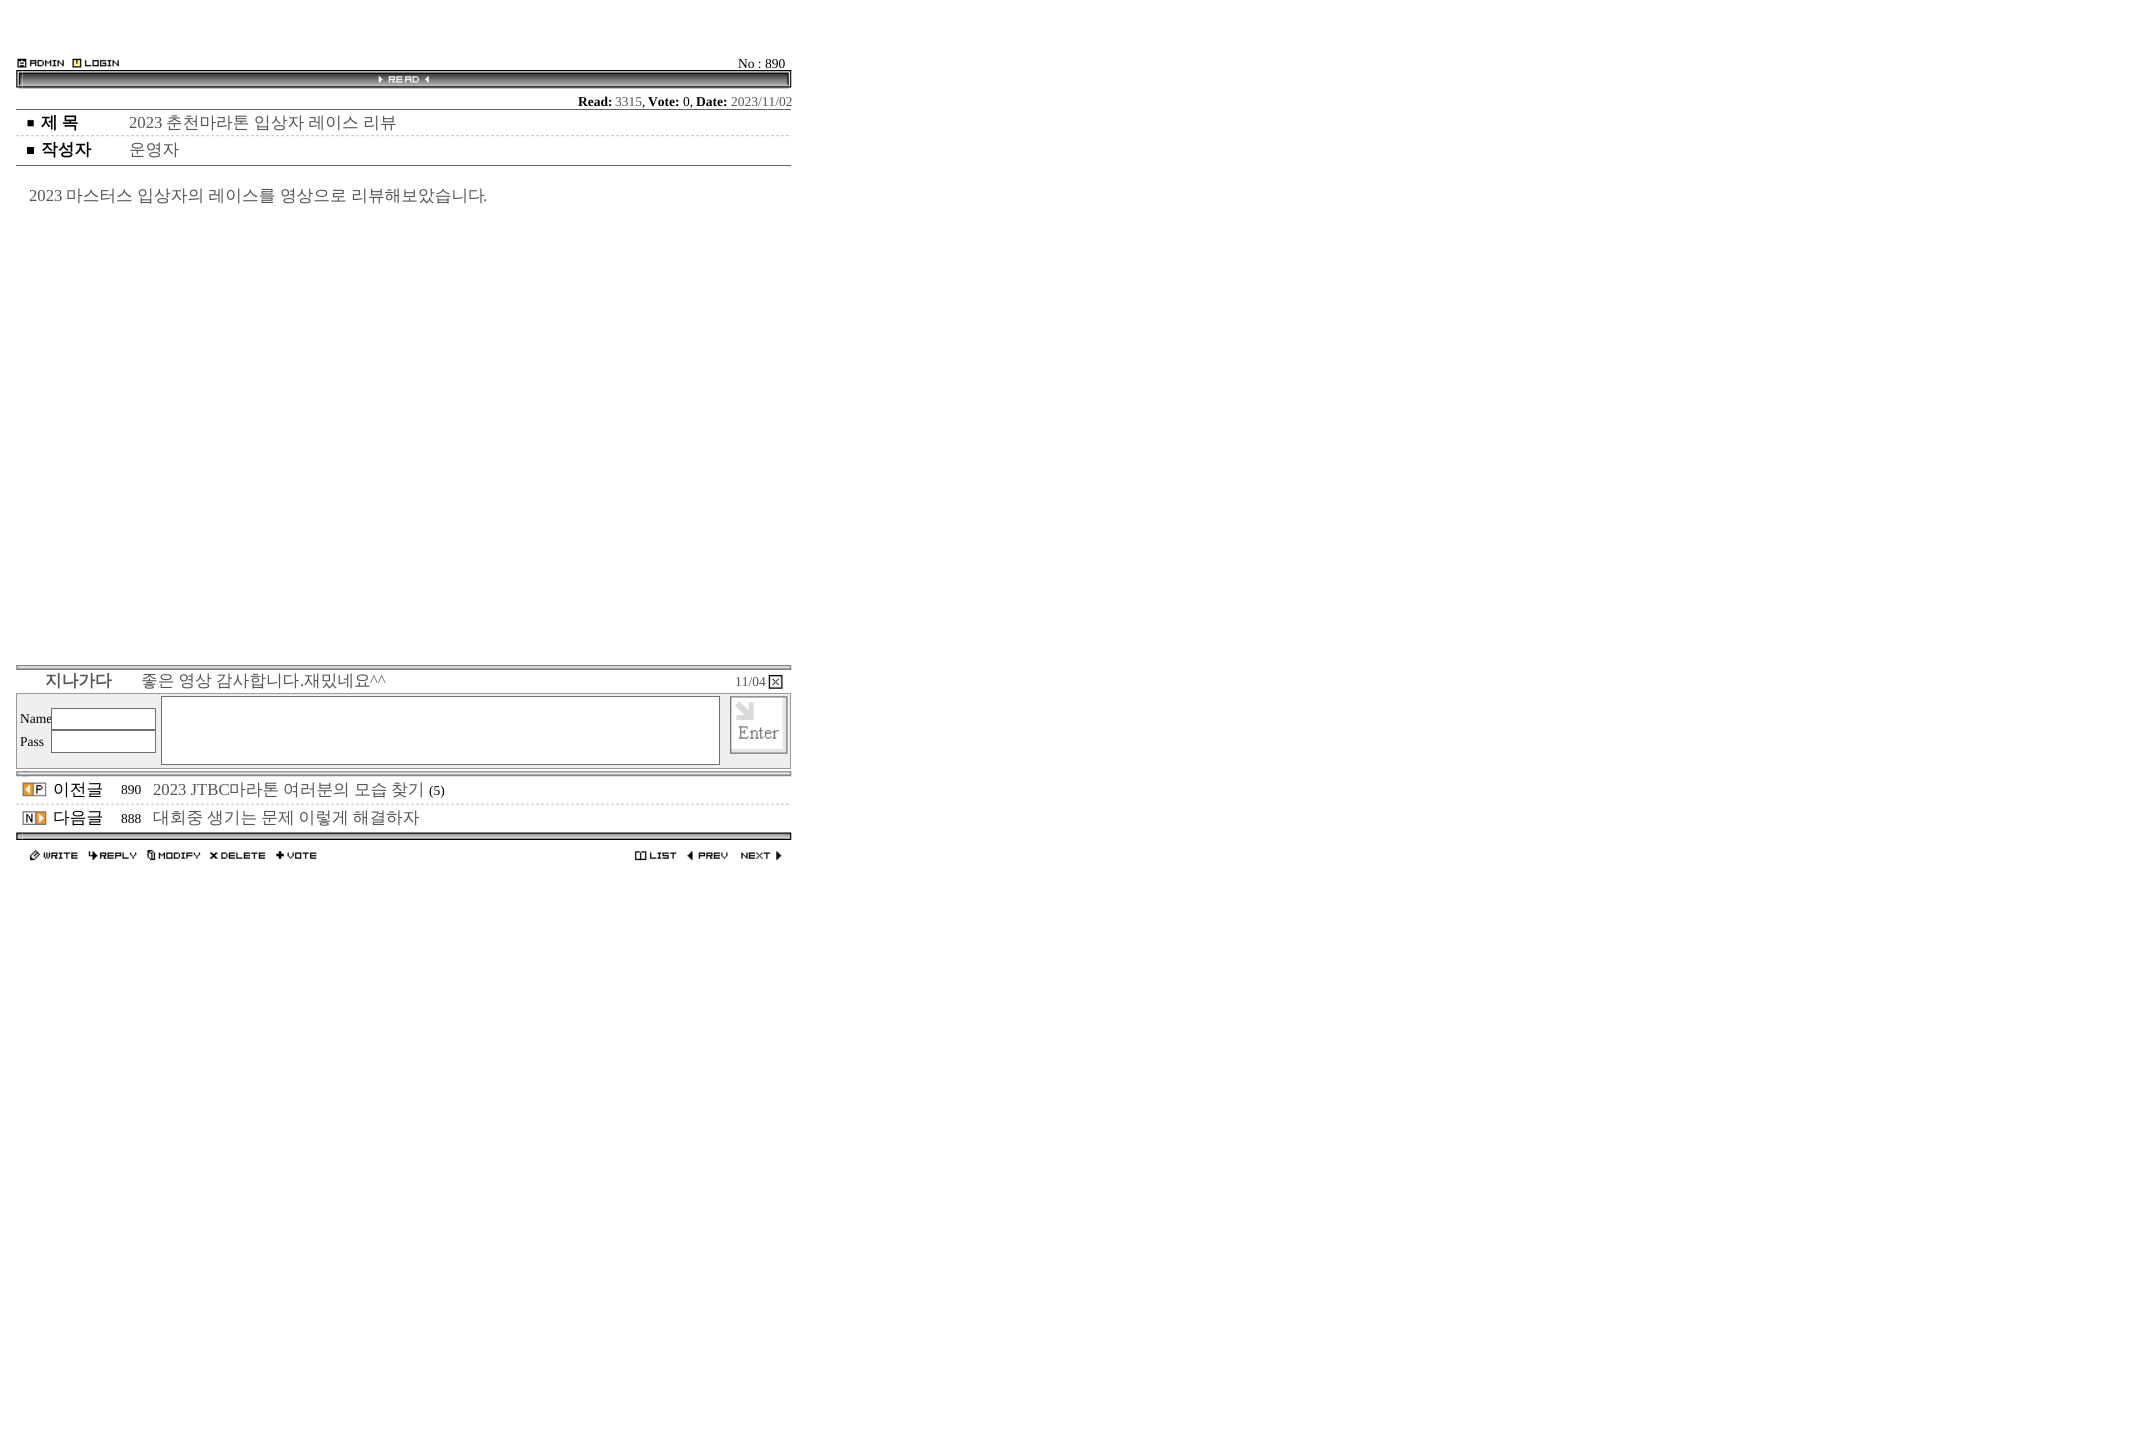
import math
import cairo


def write_spaced(ctx, x, y, s, letter, word):
	ctx.move_to(x, y)
	for ch in s:
		ctx.show_text(ch)
		ctx.rel_move_to(letter + word * (ch == ' '), 0)

def paste(ctx, path, x, y, w, h):
	ctx.save()
	ctx.set_source_surface(cairo.ImageSurface.create_from_png(path), x, y)
	ctx.rectangle(x, y, w, h)
	ctx.fill()
	ctx.restore()

def draw(ctx):
	ctx.set_source_rgb(1, 1, 1)
	ctx.paint()
	paste(ctx, 'media/1.png', 17, 58, 47, 10)
	paste(ctx, 'media/2.png', 72, 58, 47, 10)
	ctx.select_font_face('Liberation Serif')
	ctx.set_font_size(13.5)
	ctx.set_source_rgb(0, 0, 0)
	ctx.move_to(738, 68)
	ctx.show_text('No : 890')
	paste(ctx, 'media/4.png', 22, 70, 763, 19)
	paste(ctx, 'media/3.png', 16, 70, 7, 19)
	paste(ctx, 'media/5.png', 378, 76, 51, 7)
	paste(ctx, 'media/6.png', 785, 70, 7, 19)
	ctx.select_font_face('Liberation Serif', cairo.FONT_SLANT_NORMAL, cairo.FONT_WEIGHT_BOLD)
	ctx.move_to(578, 106)
	ctx.show_text('Read:')
	ctx.select_font_face('Liberation Serif')
	ctx.set_source_rgb(0.333, 0.333, 0.333)
	ctx.move_to(615, 106)
	ctx.show_text('3315')
	ctx.set_source_rgb(0, 0, 0)
	ctx.move_to(642, 106)
	ctx.show_text(',')
	ctx.select_font_face('Liberation Serif', cairo.FONT_SLANT_NORMAL, cairo.FONT_WEIGHT_BOLD)
	ctx.move_to(648, 106)
	ctx.show_text('Vote:')
	ctx.select_font_face('Liberation Serif')
	ctx.move_to(683, 106)
	ctx.show_text('0,')
	ctx.select_font_face('Liberation Serif', cairo.FONT_SLANT_NORMAL, cairo.FONT_WEIGHT_BOLD)
	ctx.move_to(696, 106)
	ctx.show_text('Date:')
	ctx.select_font_face('Liberation Serif')
	ctx.set_source_rgb(0.333, 0.333, 0.333)
	ctx.move_to(731, 106)
	ctx.show_text('2023/11/02')
	ctx.set_source_rgb(0.4, 0.4, 0.4)
	ctx.rectangle(16, 109, 775, 1)
	ctx.fill()
	paste(ctx, 'media/7.png', 27, 119, 7, 8)
	ctx.select_font_face('WenQuanYi Zen Hei', cairo.FONT_SLANT_NORMAL, cairo.FONT_WEIGHT_BOLD)
	ctx.set_font_size(16.7)
	ctx.set_source_rgb(0, 0, 0)
	write_spaced(ctx, 41, 128, '제 목', 0, -1)
	ctx.select_font_face('Liberation Serif')
	ctx.set_source_rgb(0.333, 0.333, 0.333)
	ctx.move_to(129, 128)
	ctx.show_text('2023')
	ctx.select_font_face('WenQuanYi Zen Hei Medium')
	write_spaced(ctx, 166, 128, '춘천마라톤 입상자 레이스 리뷰', 0, -0.5)
	paste(ctx, 'media/8.png', 16, 135, 776, 2)
	ctx.set_source_rgb(0, 0, 0)
	ctx.rectangle(27, 147, 7, 7)
	ctx.fill()
	ctx.select_font_face('WenQuanYi Zen Hei', cairo.FONT_SLANT_NORMAL, cairo.FONT_WEIGHT_BOLD)
	ctx.move_to(41, 155)
	ctx.show_text('작성자')
	ctx.select_font_face('WenQuanYi Zen Hei Medium')
	ctx.set_source_rgb(0.333, 0.333, 0.333)
	ctx.move_to(129, 155)
	ctx.show_text('운영자')
	ctx.set_source_rgb(0.4, 0.4, 0.4)
	ctx.rectangle(16, 165, 775, 1)
	ctx.fill()
	ctx.select_font_face('Liberation Serif')
	ctx.set_source_rgb(0.333, 0.333, 0.333)
	ctx.move_to(29, 201)
	ctx.show_text('2023')
	ctx.select_font_face('WenQuanYi Zen Hei Medium')
	write_spaced(ctx, 66, 201, '마스터스 입상자의 레이스를 영상으로 리뷰해보았습니다', 0, -0.5)
	ctx.select_font_face('Liberation Serif')
	ctx.move_to(483, 201)
	ctx.show_text('.')
	paste(ctx, 'media/10.png', 22, 665, 763, 5)
	paste(ctx, 'media/9.png', 16, 665, 7, 5)
	paste(ctx, 'media/11.png', 22, 665, 1, 5)
	paste(ctx, 'media/12.png', 785, 665, 7, 5)
	ctx.select_font_face('WenQuanYi Zen Hei', cairo.FONT_SLANT_NORMAL, cairo.FONT_WEIGHT_BOLD)
	ctx.move_to(45, 686)
	ctx.show_text('지나가다')
	ctx.select_font_face('WenQuanYi Zen Hei Medium')
	write_spaced(ctx, 141, 686, '좋은 영상 감사합니다', 0, -1)
	ctx.move_to(304, 686)
	ctx.show_text('재밌네요')
	ctx.select_font_face('Liberation Serif')
	ctx.move_to(370, 686)
	ctx.show_text('^^')
	ctx.move_to(300, 686)
	ctx.show_text('.')
	ctx.set_font_size(13.5)
	ctx.move_to(735, 686)
	ctx.show_text('11/04')
	paste(ctx, 'media/13.png', 768, 675, 15, 14)
	ctx.set_source_rgb(0.937, 0.937, 0.937)
	ctx.rectangle(16.5, 693.5, 774, 75)
	ctx.fill_preserve()
	ctx.set_source_rgb(0.6, 0.6, 0.6)
	ctx.set_line_width(1)
	ctx.stroke()
	ctx.set_source_rgb(0, 0, 0)
	ctx.move_to(20, 723)
	ctx.show_text('Name')
	ctx.set_source_rgb(1, 1, 1)
	ctx.rectangle(51.5, 708.5, 104, 21)
	ctx.fill_preserve()
	ctx.set_source_rgb(0.435, 0.435, 0.435)
	ctx.stroke()
	ctx.set_source_rgb(0, 0, 0)
	ctx.move_to(20, 746)
	ctx.show_text('Pass')
	ctx.set_source_rgb(1, 1, 1)
	ctx.rectangle(51.5, 730.5, 104, 22)
	ctx.fill_preserve()
	ctx.set_source_rgb(0.435, 0.435, 0.435)
	ctx.stroke()
	ctx.set_source_rgb(1, 1, 1)
	ctx.rectangle(161.5, 696.5, 558, 68)
	ctx.fill_preserve()
	ctx.set_source_rgb(0.435, 0.435, 0.435)
	ctx.stroke()
	paste(ctx, 'media/14.png', 730, 696, 58, 58)
	paste(ctx, 'media/16.png', 22, 771, 763, 6)
	paste(ctx, 'media/15.png', 16, 771, 7, 6)
	paste(ctx, 'media/17.png', 22, 771, 7, 6)
	paste(ctx, 'media/18.png', 785, 771, 7, 6)
	paste(ctx, 'media/19.png', 22, 782, 25, 15)
	ctx.select_font_face('WenQuanYi Zen Hei Medium')
	ctx.set_font_size(16.7)
	ctx.set_source_rgb(0, 0, 0)
	ctx.move_to(53, 795)
	ctx.show_text('이전글')
	ctx.select_font_face('Liberation Serif')
	ctx.set_font_size(13.5)
	ctx.move_to(121, 794)
	ctx.show_text('890')
	ctx.set_font_size(16.7)
	ctx.set_source_rgb(0.333, 0.333, 0.333)
	ctx.move_to(153, 795)
	ctx.show_text('2023 JTBC')
	ctx.select_font_face('WenQuanYi Zen Hei Medium')
	for x, y, s in [
		(229, 795, '마라톤'),
		(283, 795, '여러분의'),
		(354, 795, '모습'),
		(391, 795, '찾기'),
	]:
		ctx.move_to(x, y)
		ctx.show_text(s)
	ctx.select_font_face('Liberation Serif')
	ctx.set_font_size(13.5)
	ctx.set_source_rgb(0, 0, 0)
	ctx.move_to(429, 795)
	ctx.show_text('(5)')
	paste(ctx, 'media/20.png', 16, 803, 776, 2)
	paste(ctx, 'media/21.png', 22, 811, 25, 14)
	ctx.select_font_face('WenQuanYi Zen Hei Medium')
	ctx.set_font_size(16.7)
	ctx.move_to(53, 823)
	ctx.show_text('다음글')
	ctx.select_font_face('Liberation Serif')
	ctx.set_font_size(13.5)
	ctx.move_to(121, 823)
	ctx.show_text('888')
	ctx.select_font_face('WenQuanYi Zen Hei Medium')
	ctx.set_font_size(16.7)
	ctx.set_source_rgb(0.333, 0.333, 0.333)
	write_spaced(ctx, 153, 823, '대회중 생기는 문제 이렇게 해결하자', 0, -1)
	paste(ctx, 'media/23.png', 22, 832, 763, 8)
	paste(ctx, 'media/22.png', 16, 832, 7, 8)
	paste(ctx, 'media/24.png', 785, 832, 7, 8)
	paste(ctx, 'media/25.png', 29, 849, 49, 12)
	paste(ctx, 'media/26.png', 88, 851, 49, 10)
	paste(ctx, 'media/27.png', 147, 849, 54, 12)
	paste(ctx, 'media/28.png', 210, 852, 56, 7)
	paste(ctx, 'media/29.png', 276, 851, 41, 8)
	paste(ctx, 'media/30.png', 634, 851, 43, 10)
	paste(ctx, 'media/31.png', 687, 851, 41, 10)
	paste(ctx, 'media/32.png', 741, 851, 41, 10)


surface = cairo.ImageSurface(cairo.FORMAT_RGB24, 2147, 1429)
ctx = cairo.Context(surface)
options = cairo.FontOptions()
options.set_hint_metrics(cairo.HINT_METRICS_OFF)
options.set_hint_style(cairo.HINT_STYLE_NONE)
ctx.set_font_options(options)
ctx.set_miter_limit(4)
draw(ctx)
surface.write_to_png('image.png')
